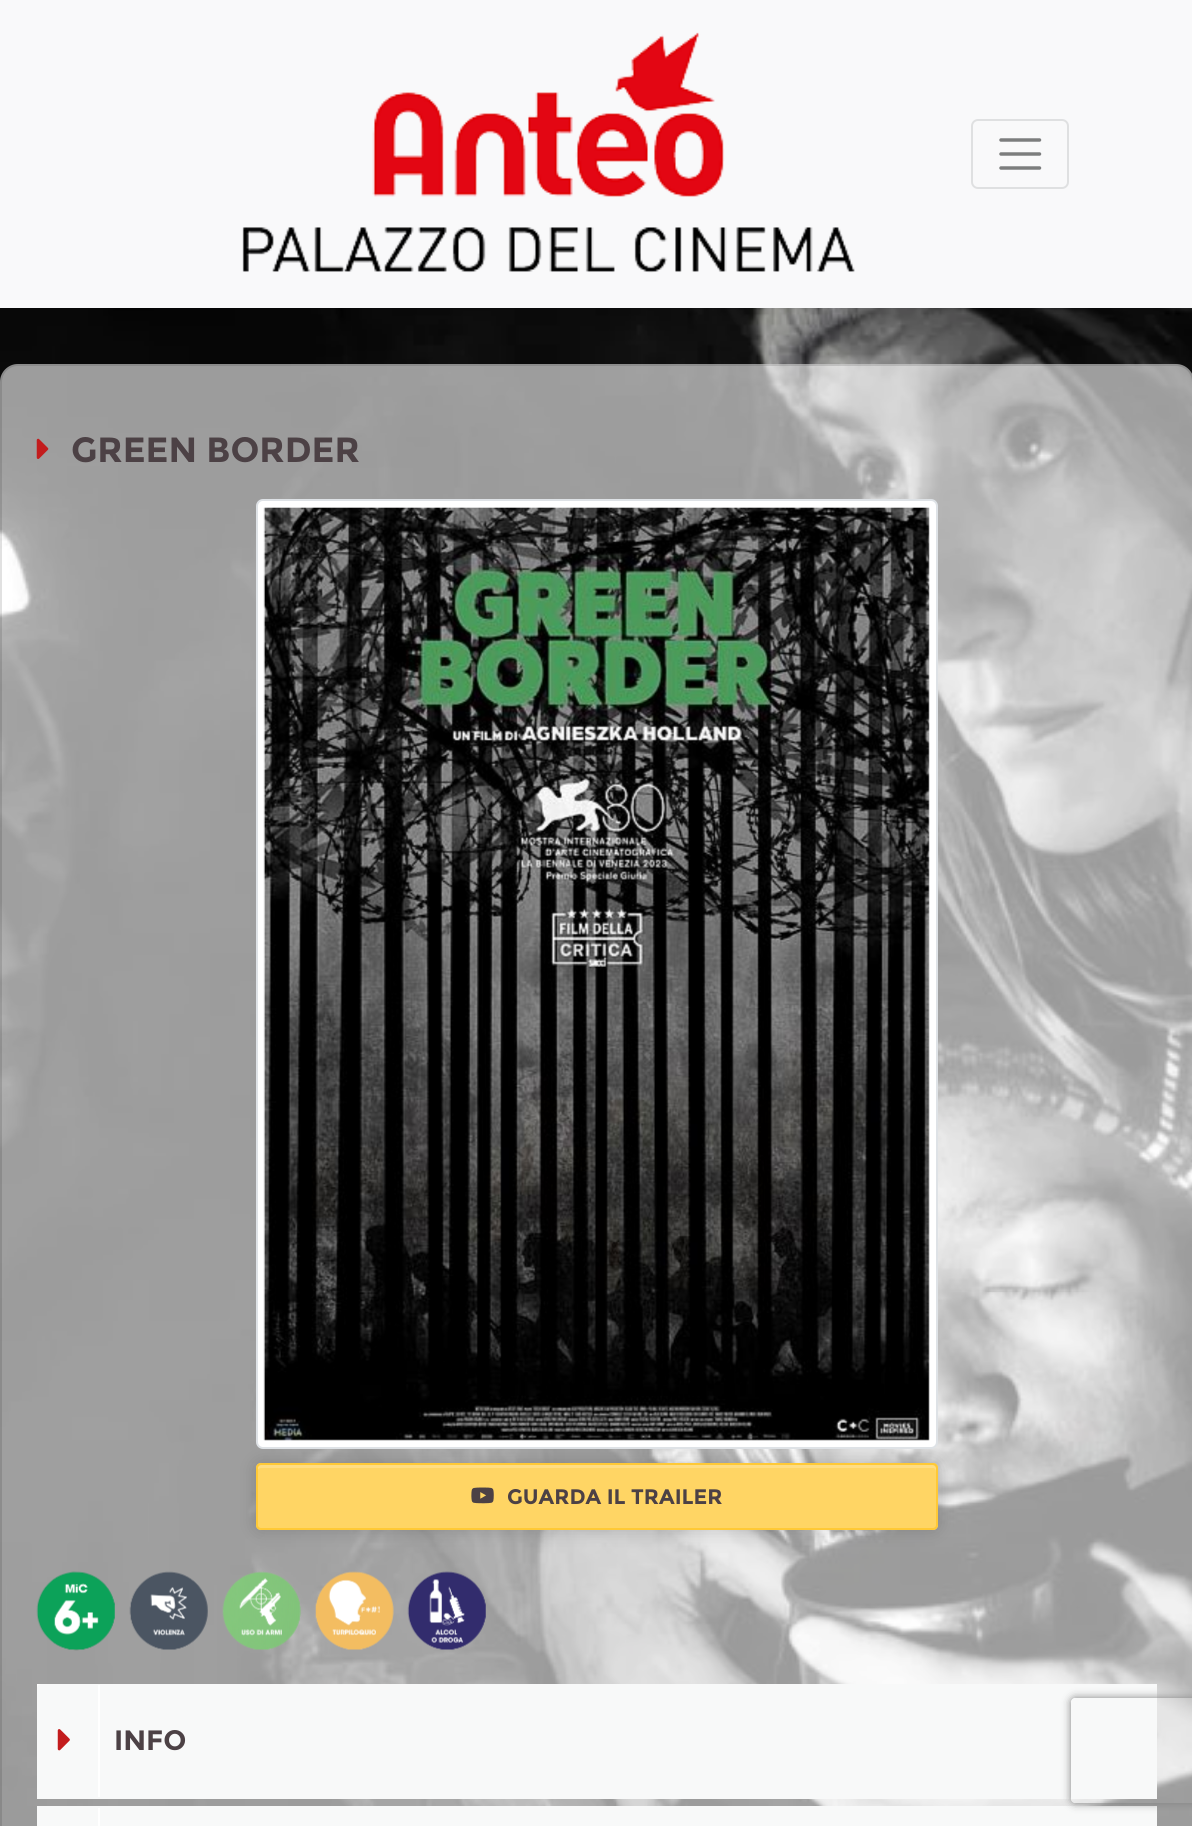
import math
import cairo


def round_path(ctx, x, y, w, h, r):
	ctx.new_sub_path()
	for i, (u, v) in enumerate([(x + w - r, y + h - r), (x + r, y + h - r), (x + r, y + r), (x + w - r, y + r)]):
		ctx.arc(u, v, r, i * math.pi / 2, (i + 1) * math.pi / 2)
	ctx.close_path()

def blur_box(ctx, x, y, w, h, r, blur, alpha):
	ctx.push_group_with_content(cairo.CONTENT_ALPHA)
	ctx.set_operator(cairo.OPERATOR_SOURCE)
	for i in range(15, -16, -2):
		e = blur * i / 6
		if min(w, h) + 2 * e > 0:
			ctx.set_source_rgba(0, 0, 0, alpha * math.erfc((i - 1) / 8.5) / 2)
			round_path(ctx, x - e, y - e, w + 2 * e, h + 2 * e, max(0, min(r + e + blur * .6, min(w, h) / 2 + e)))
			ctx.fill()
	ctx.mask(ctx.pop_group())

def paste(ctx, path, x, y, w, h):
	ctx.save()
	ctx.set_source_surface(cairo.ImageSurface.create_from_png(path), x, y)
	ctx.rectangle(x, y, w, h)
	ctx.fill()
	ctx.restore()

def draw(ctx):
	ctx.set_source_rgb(1, 1, 1)
	ctx.paint()
	ctx.set_source_rgb(0.973, 0.976, 0.98)
	ctx.rectangle(0, 0, 1192, 308)
	ctx.fill()
	paste(ctx, 'media/1.png', 242, 32, 613, 241)
	round_path(ctx, 972, 120, 96, 68, 6)
	ctx.set_source_rgb(0.875, 0.878, 0.882)
	ctx.stroke()
	ctx.new_path()
	ctx.move_to(1001, 140)
	ctx.line_to(1039.5, 140)
	ctx.move_to(1001, 154)
	ctx.line_to(1039.5, 154)
	ctx.move_to(1001, 168)
	ctx.line_to(1039.5, 168)
	ctx.set_source_rgb(0.486, 0.49, 0.49)
	ctx.set_line_width(3.5)
	ctx.set_line_cap(cairo.LINE_CAP_ROUND)
	ctx.stroke()
	paste(ctx, 'media/2.png', 0, 308, 1192, 1518)
	ctx.set_source_rgba(1, 1, 1, 0.6)
	round_path(ctx, 0, 364, 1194, 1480, 18)
	ctx.fill()
	round_path(ctx, 1, 365, 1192, 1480, 17)
	ctx.set_source_rgba(0, 0, 0, 0.12)
	ctx.set_line_width(2)
	ctx.set_line_cap(cairo.LINE_CAP_BUTT)
	ctx.stroke()
	paste(ctx, 'media/3.png', 36, 438, 13, 21)
	ctx.select_font_face('Montserrat', cairo.FONT_SLANT_NORMAL, cairo.FONT_WEIGHT_BOLD)
	ctx.set_font_size(35)
	ctx.set_source_rgb(0.298, 0.255, 0.271)
	ctx.move_to(71, 462)
	ctx.show_text('GREEN BORDER')
	ctx.set_source_rgb(0, 0, 0)
	blur_box(ctx, 256, 1463, 682, 67, 5, 9, 0.16)
	ctx.set_source_rgb(1, 1, 1)
	round_path(ctx, 257, 500, 680, 948, 6)
	ctx.fill_preserve()
	ctx.set_source_rgb(0.871, 0.886, 0.902)
	ctx.stroke()
	paste(ctx, 'media/4.png', 263, 507, 667, 934)
	ctx.set_source_rgb(1, 0.835, 0.392)
	round_path(ctx, 256, 1463, 682, 67, 5)
	ctx.fill()
	ctx.set_source_rgb(1, 0.867, 0.514)
	ctx.new_path()
	ctx.move_to(261, 1468)
	ctx.line_to(933, 1468)
	ctx.curve_to(935, 1468, 936, 1470, 936, 1472)
	ctx.line_to(936, 1469)
	ctx.curve_to(936, 1467, 934, 1465, 932, 1465)
	ctx.line_to(261, 1465)
	ctx.curve_to(259, 1465, 257, 1467, 257, 1469)
	ctx.line_to(257, 1472)
	ctx.curve_to(257, 1470, 259, 1468, 261, 1468)
	ctx.close_path()
	ctx.fill()
	round_path(ctx, 257, 1464, 680, 65, 4)
	ctx.set_source_rgb(1, 0.788, 0.212)
	ctx.stroke()
	paste(ctx, 'media/5.png', 471, 1487, 23, 17)
	ctx.set_font_size(21)
	ctx.set_source_rgb(0.298, 0.255, 0.271)
	ctx.move_to(507, 1504)
	ctx.show_text('GUARDA IL TRAILER')
	paste(ctx, 'media/6.png', 36, 1571, 79, 80)
	paste(ctx, 'media/7.png', 129, 1571, 79, 79)
	paste(ctx, 'media/8.png', 222, 1571, 79, 79)
	paste(ctx, 'media/9.png', 315, 1571, 79, 79)
	paste(ctx, 'media/10.png', 407, 1571, 79, 79)
	ctx.set_source_rgb(1, 1, 1)
	ctx.rectangle(37, 1684, 5, 5)
	ctx.fill()
	ctx.set_source_rgb(0.969, 0.973, 0.976)
	ctx.new_path()
	ctx.move_to(42, 1684)
	ctx.line_to(1157, 1684)
	ctx.line_to(1157, 1799)
	ctx.line_to(37, 1799)
	ctx.line_to(37, 1689)
	ctx.curve_to(37, 1686, 39, 1684, 42, 1684)
	ctx.close_path()
	ctx.fill()
	ctx.set_source_rgb(1, 1, 1)
	ctx.rectangle(98, 1685, 2, 112)
	ctx.fill()
	paste(ctx, 'media/11.png', 57, 1729, 13, 22)
	ctx.set_font_size(28)
	ctx.set_source_rgb(0.298, 0.255, 0.271)
	ctx.move_to(114, 1750)
	ctx.show_text('INFO')
	ctx.set_source_rgb(1, 1, 1)
	ctx.rectangle(1152, 1806, 5, 5)
	ctx.fill()
	ctx.set_source_rgb(0.969, 0.973, 0.976)
	ctx.new_path()
	ctx.move_to(37, 1806)
	ctx.line_to(1152, 1806)
	ctx.curve_to(1155, 1806, 1157, 1808, 1157, 1811)
	ctx.line_to(1157, 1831)
	ctx.line_to(37, 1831)
	ctx.close_path()
	ctx.fill()
	ctx.set_source_rgb(1, 1, 1)
	ctx.rectangle(98, 1808, 2, 18)
	ctx.fill()
	ctx.save()
	ctx.set_fill_rule(cairo.FILL_RULE_EVEN_ODD)
	ctx.new_path()
	ctx.move_to(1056, 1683)
	ctx.line_to(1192, 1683)
	ctx.line_to(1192, 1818)
	ctx.line_to(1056, 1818)
	ctx.close_path()
	ctx.move_to(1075, 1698)
	ctx.line_to(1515, 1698)
	ctx.curve_to(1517, 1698, 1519, 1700, 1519, 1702)
	ctx.line_to(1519, 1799)
	ctx.curve_to(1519, 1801, 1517, 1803, 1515, 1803)
	ctx.line_to(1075, 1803)
	ctx.curve_to(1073, 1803, 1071, 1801, 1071, 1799)
	ctx.line_to(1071, 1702)
	ctx.curve_to(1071, 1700, 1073, 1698, 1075, 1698)
	ctx.close_path()
	ctx.clip()
	ctx.set_source_rgb(0.502, 0.502, 0.502)
	blur_box(ctx, 1071, 1698, 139, 105, 4, 4.5, 1)
	ctx.restore()


surface = cairo.ImageSurface(cairo.FORMAT_RGB24, 1192, 1826)
ctx = cairo.Context(surface)
options = cairo.FontOptions()
options.set_hint_metrics(cairo.HINT_METRICS_OFF)
options.set_hint_style(cairo.HINT_STYLE_NONE)
ctx.set_font_options(options)
ctx.set_miter_limit(4)
draw(ctx)
surface.write_to_png('image.png')
